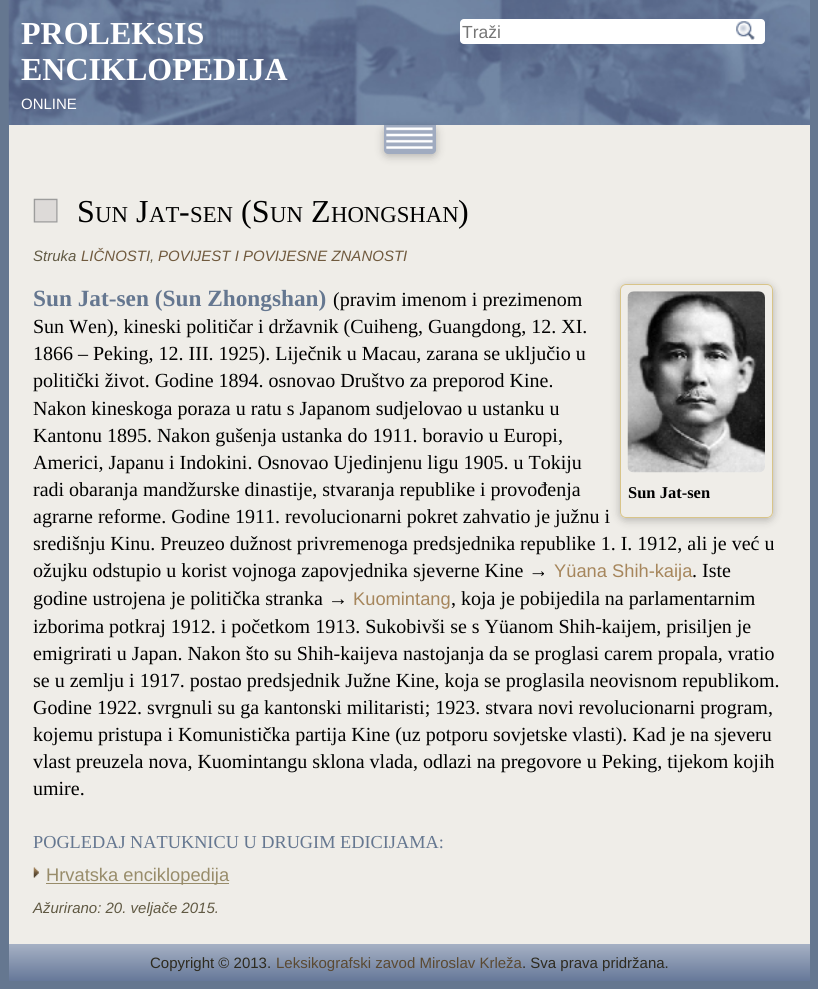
import math
import cairo


def round_path(ctx, x, y, w, h, r):
	ctx.new_sub_path()
	for i, (u, v) in enumerate([(x + w - r, y + h - r), (x + r, y + h - r), (x + r, y + r), (x + w - r, y + r)]):
		ctx.arc(u, v, r, i * math.pi / 2, (i + 1) * math.pi / 2)
	ctx.close_path()

def blur_box(ctx, x, y, w, h, r, blur, alpha):
	ctx.push_group_with_content(cairo.CONTENT_ALPHA)
	ctx.set_operator(cairo.OPERATOR_SOURCE)
	for i in range(15, -16, -2):
		e = blur * i / 6
		if min(w, h) + 2 * e > 0:
			ctx.set_source_rgba(0, 0, 0, alpha * math.erfc((i - 1) / 8.5) / 2)
			round_path(ctx, x - e, y - e, w + 2 * e, h + 2 * e, max(0, min(r + e + blur * .6, min(w, h) / 2 + e)))
			ctx.fill()
	ctx.mask(ctx.pop_group())

def paste(ctx, path, x, y, w, h):
	ctx.save()
	ctx.set_source_surface(cairo.ImageSurface.create_from_png(path), x, y)
	ctx.rectangle(x, y, w, h)
	ctx.fill()
	ctx.restore()

def draw(ctx):
	ctx.set_source_rgb(0.396, 0.467, 0.565)
	ctx.paint()
	ctx.set_source_rgb(0.937, 0.929, 0.91)
	ctx.rectangle(9, 125, 801, 819)
	ctx.fill()
	paste(ctx, 'media/1.png', 8, 0, 802, 125)
	ctx.select_font_face('Liberation Serif', cairo.FONT_SLANT_NORMAL, cairo.FONT_WEIGHT_BOLD)
	ctx.set_font_size(32)
	ctx.set_source_rgb(1, 1, 1)
	ctx.move_to(21, 44)
	ctx.show_text('PROLEKSIS')
	ctx.move_to(21, 80)
	ctx.show_text('ENCIKLOPEDIJA')
	ctx.select_font_face('Liberation Sans')
	ctx.set_font_size(15)
	ctx.move_to(21, 109)
	ctx.show_text('ONLINE')
	round_path(ctx, 460, 19, 305, 25, 4)
	ctx.fill()
	ctx.set_font_size(17.5)
	ctx.set_source_rgb(0.459, 0.459, 0.459)
	ctx.move_to(462, 38)
	ctx.show_text('Traži')
	paste(ctx, 'media/2.png', 736, 21, 19, 19)
	ctx.set_source_rgb(0, 0, 0)
	blur_box(ctx, 384, 128, 52, 28, 4, 4.5, 0.25)
	ctx.set_source_rgb(0.627, 0.671, 0.753)
	ctx.new_path()
	ctx.move_to(384, 125)
	ctx.line_to(436, 125)
	ctx.line_to(436, 150)
	ctx.curve_to(436, 152, 434, 154, 432, 154)
	ctx.line_to(388, 154)
	ctx.curve_to(386, 154, 384, 152, 384, 150)
	ctx.close_path()
	ctx.fill()
	paste(ctx, 'media/3.png', 386, 127, 47, 22)
	paste(ctx, 'media/4.png', 33, 198, 25, 25)
	ctx.select_font_face('Liberation Serif')
	ctx.set_font_size(32)
	ctx.set_source_rgb(0, 0, 0)
	ctx.move_to(77, 222)
	ctx.show_text('S')
	ctx.set_font_size(22.75)
	ctx.move_to(95, 222)
	ctx.show_text('UN')
	ctx.set_font_size(32)
	ctx.move_to(136, 222)
	ctx.show_text('J')
	ctx.set_font_size(22.75)
	ctx.move_to(149, 222)
	ctx.show_text('AT')
	ctx.set_font_size(32)
	ctx.move_to(179, 222)
	ctx.show_text('-')
	ctx.set_font_size(22.75)
	ctx.move_to(190, 222)
	ctx.show_text('SEN')
	ctx.set_font_size(32)
	ctx.move_to(241, 222)
	ctx.show_text('(S')
	ctx.set_font_size(22.75)
	ctx.move_to(270, 222)
	ctx.show_text('UN')
	ctx.set_font_size(32)
	ctx.move_to(311, 222)
	ctx.show_text('Z')
	ctx.set_font_size(22.75)
	ctx.move_to(331, 222)
	ctx.show_text('HONGSHAN')
	ctx.set_font_size(32)
	ctx.move_to(458, 222)
	ctx.show_text(')')
	ctx.select_font_face('Liberation Sans', cairo.FONT_SLANT_ITALIC)
	ctx.set_font_size(15)
	ctx.set_source_rgb(0.376, 0.349, 0.263)
	ctx.move_to(33, 261)
	ctx.show_text('Struka')
	ctx.set_source_rgb(0.439, 0.353, 0.243)
	ctx.move_to(81, 261)
	ctx.show_text('LIČNOSTI')
	ctx.set_source_rgb(0.376, 0.349, 0.263)
	ctx.move_to(150, 261)
	ctx.show_text(',')
	ctx.set_source_rgb(0.439, 0.353, 0.243)
	ctx.move_to(158, 261)
	ctx.show_text('POVIJEST I POVIJESNE ZNANOSTI')
	ctx.select_font_face('Liberation Serif', cairo.FONT_SLANT_NORMAL, cairo.FONT_WEIGHT_BOLD)
	ctx.set_font_size(23.3)
	ctx.set_source_rgb(0.396, 0.467, 0.565)
	ctx.move_to(33, 306)
	ctx.show_text('Sun Jat-sen (Sun Zhongshan)')
	ctx.select_font_face('Liberation Serif')
	ctx.set_font_size(20)
	ctx.set_source_rgb(0, 0, 0)
	for x, y, s in [
		(333, 306, '(pravim imenom i prezimenom'),
		(33, 333, 'Sun Wen), kineski političar i državnik (Cuiheng, Guangdong, 12. XI.'),
		(33, 360, '1866 – Peking, 12. III. 1925). Liječnik u Macau, zarana se uključio u'),
		(33, 387, 'politički život. Godine 1894. osnovao Društvo za preporod Kine.'),
		(33, 415, 'Nakon kineskoga poraza u ratu s Japanom sudjelovao u ustanku u'),
		(33, 442, 'Kantonu 1895. Nakon gušenja ustanka do 1911. boravio u Europi,'),
		(33, 469, 'Americi, Japanu i Indokini. Osnovao Ujedinjenu ligu 1905. u Tokiju'),
		(33, 496, 'radi obaranja mandžurske dinastije, stvaranja republike i provođenja'),
	]:
		ctx.move_to(x, y)
		ctx.show_text(s)
	ctx.save()
	ctx.set_fill_rule(cairo.FILL_RULE_EVEN_ODD)
	ctx.new_path()
	ctx.move_to(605, 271)
	ctx.line_to(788, 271)
	ctx.line_to(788, 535)
	ctx.line_to(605, 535)
	ctx.close_path()
	ctx.move_to(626, 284)
	ctx.line_to(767, 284)
	ctx.curve_to(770.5, 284, 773, 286.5, 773, 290)
	ctx.line_to(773, 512)
	ctx.curve_to(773, 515.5, 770.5, 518, 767, 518)
	ctx.line_to(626, 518)
	ctx.curve_to(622.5, 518, 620, 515.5, 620, 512)
	ctx.line_to(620, 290)
	ctx.curve_to(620, 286.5, 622.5, 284, 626, 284)
	ctx.close_path()
	ctx.clip()
	ctx.set_source_rgb(0, 0, 0)
	blur_box(ctx, 620, 286, 153, 234, 6, 4.5, 0.25)
	ctx.restore()
	for x, y, s in [
		(33, 523, 'agrarne reforme. Godine 1911. revolucionarni pokret zahvatio je južnu i'),
		(33, 550, 'središnju Kinu. Preuzeo dužnost privremenoga predsjednika republike 1. I. 1912, ali je već u'),
		(33, 577, 'ožujku odstupio u korist vojnoga zapovjednika sjeverne Kine →'),
	]:
		ctx.move_to(x, y)
		ctx.show_text(s)
	ctx.select_font_face('Liberation Sans')
	ctx.set_font_size(18.3)
	ctx.set_source_rgb(0.651, 0.525, 0.361)
	ctx.move_to(554, 577)
	ctx.show_text('Yüana Shih-kaija')
	ctx.select_font_face('Liberation Serif')
	ctx.set_font_size(20)
	ctx.set_source_rgb(0, 0, 0)
	ctx.move_to(692, 577)
	ctx.show_text('. Iste')
	ctx.move_to(33, 605)
	ctx.show_text('godine ustrojena je politička stranka →')
	ctx.select_font_face('Liberation Sans')
	ctx.set_font_size(18.3)
	ctx.set_source_rgb(0.651, 0.525, 0.361)
	ctx.move_to(353, 605)
	ctx.show_text('Kuomintang')
	ctx.select_font_face('Liberation Serif')
	ctx.set_font_size(20)
	ctx.set_source_rgb(0, 0, 0)
	for x, y, s in [
		(451, 605, ', koja je pobijedila na parlamentarnim'),
		(33, 633, 'izborima potkraj 1912. i početkom 1913. Sukobivši se s Yüanom Shih-kaijem, prisiljen je'),
		(33, 660, 'emigrirati u Japan. Nakon što su Shih-kaijeva nastojanja da se proglasi carem propala, vratio'),
		(33, 687, 'se u zemlju i 1917. postao predsjednik Južne Kine, koja se proglasila neovisnom republikom.'),
		(33, 714, 'Godine 1922. svrgnuli su ga kantonski militaristi; 1923. stvara novi revolucionarni program,'),
		(33, 741, 'kojemu pristupa i Komunistička partija Kine (uz potporu sovjetske vlasti). Kad je na sjeveru'),
		(33, 768, 'vlast preuzela nova, Kuomintangu sklona vlada, odlazi na pregovore u Peking, tijekom kojih'),
		(33, 795, 'umire.'),
	]:
		ctx.move_to(x, y)
		ctx.show_text(s)
	round_path(ctx, 620.5, 284.5, 152, 233, 5.5)
	ctx.set_source_rgb(0.847, 0.769, 0.537)
	ctx.set_line_width(1)
	ctx.stroke()
	paste(ctx, 'media/5.png', 627, 291, 138, 182)
	ctx.select_font_face('Liberation Serif', cairo.FONT_SLANT_NORMAL, cairo.FONT_WEIGHT_BOLD)
	ctx.set_font_size(16.5)
	ctx.set_source_rgb(0, 0, 0)
	ctx.move_to(628, 498)
	ctx.show_text('Sun Jat-sen')
	ctx.select_font_face('Liberation Serif')
	ctx.set_font_size(18.3)
	ctx.set_source_rgb(0.396, 0.467, 0.565)
	ctx.move_to(33, 848)
	ctx.show_text('POGLEDAJ NATUKNICU U DRUGIM EDICIJAMA:')
	paste(ctx, 'media/6.png', 33, 867, 6, 11)
	ctx.set_source_rgb(0.596, 0.549, 0.416)
	ctx.rectangle(46, 883, 183, 1)
	ctx.fill()
	ctx.select_font_face('Liberation Sans')
	ctx.move_to(46, 881)
	ctx.show_text('Hrvatska enciklopedija')
	ctx.select_font_face('Liberation Sans', cairo.FONT_SLANT_ITALIC)
	ctx.set_font_size(15)
	ctx.set_source_rgb(0.376, 0.349, 0.263)
	ctx.move_to(33, 913)
	ctx.show_text('Ažurirano: 20. veljače 2015.')
	gradient = cairo.LinearGradient(409, 944, 409, 981)
	gradient.add_color_stop_rgba(0, 0.651, 0.694, 0.769, 1)
	gradient.add_color_stop_rgba(1, 0.4, 0.471, 0.6, 1)
	ctx.set_source(gradient)
	ctx.rectangle(9, 944, 801, 37)
	ctx.fill()
	ctx.select_font_face('Liberation Sans')
	ctx.set_source_rgb(0.176, 0.165, 0.122)
	ctx.move_to(150, 968)
	ctx.show_text('Copyright © 2013.')
	ctx.set_source_rgb(0.353, 0.286, 0.196)
	ctx.move_to(276, 968)
	ctx.show_text('Leksikografski zavod Miroslav Krleža')
	ctx.set_source_rgb(0.176, 0.165, 0.122)
	ctx.move_to(522, 968)
	ctx.show_text('. Sva prava pridržana.')


surface = cairo.ImageSurface(cairo.FORMAT_RGB24, 818, 989)
ctx = cairo.Context(surface)
options = cairo.FontOptions()
options.set_hint_metrics(cairo.HINT_METRICS_OFF)
options.set_hint_style(cairo.HINT_STYLE_NONE)
ctx.set_font_options(options)
ctx.set_miter_limit(4)
draw(ctx)
surface.write_to_png('image.png')
